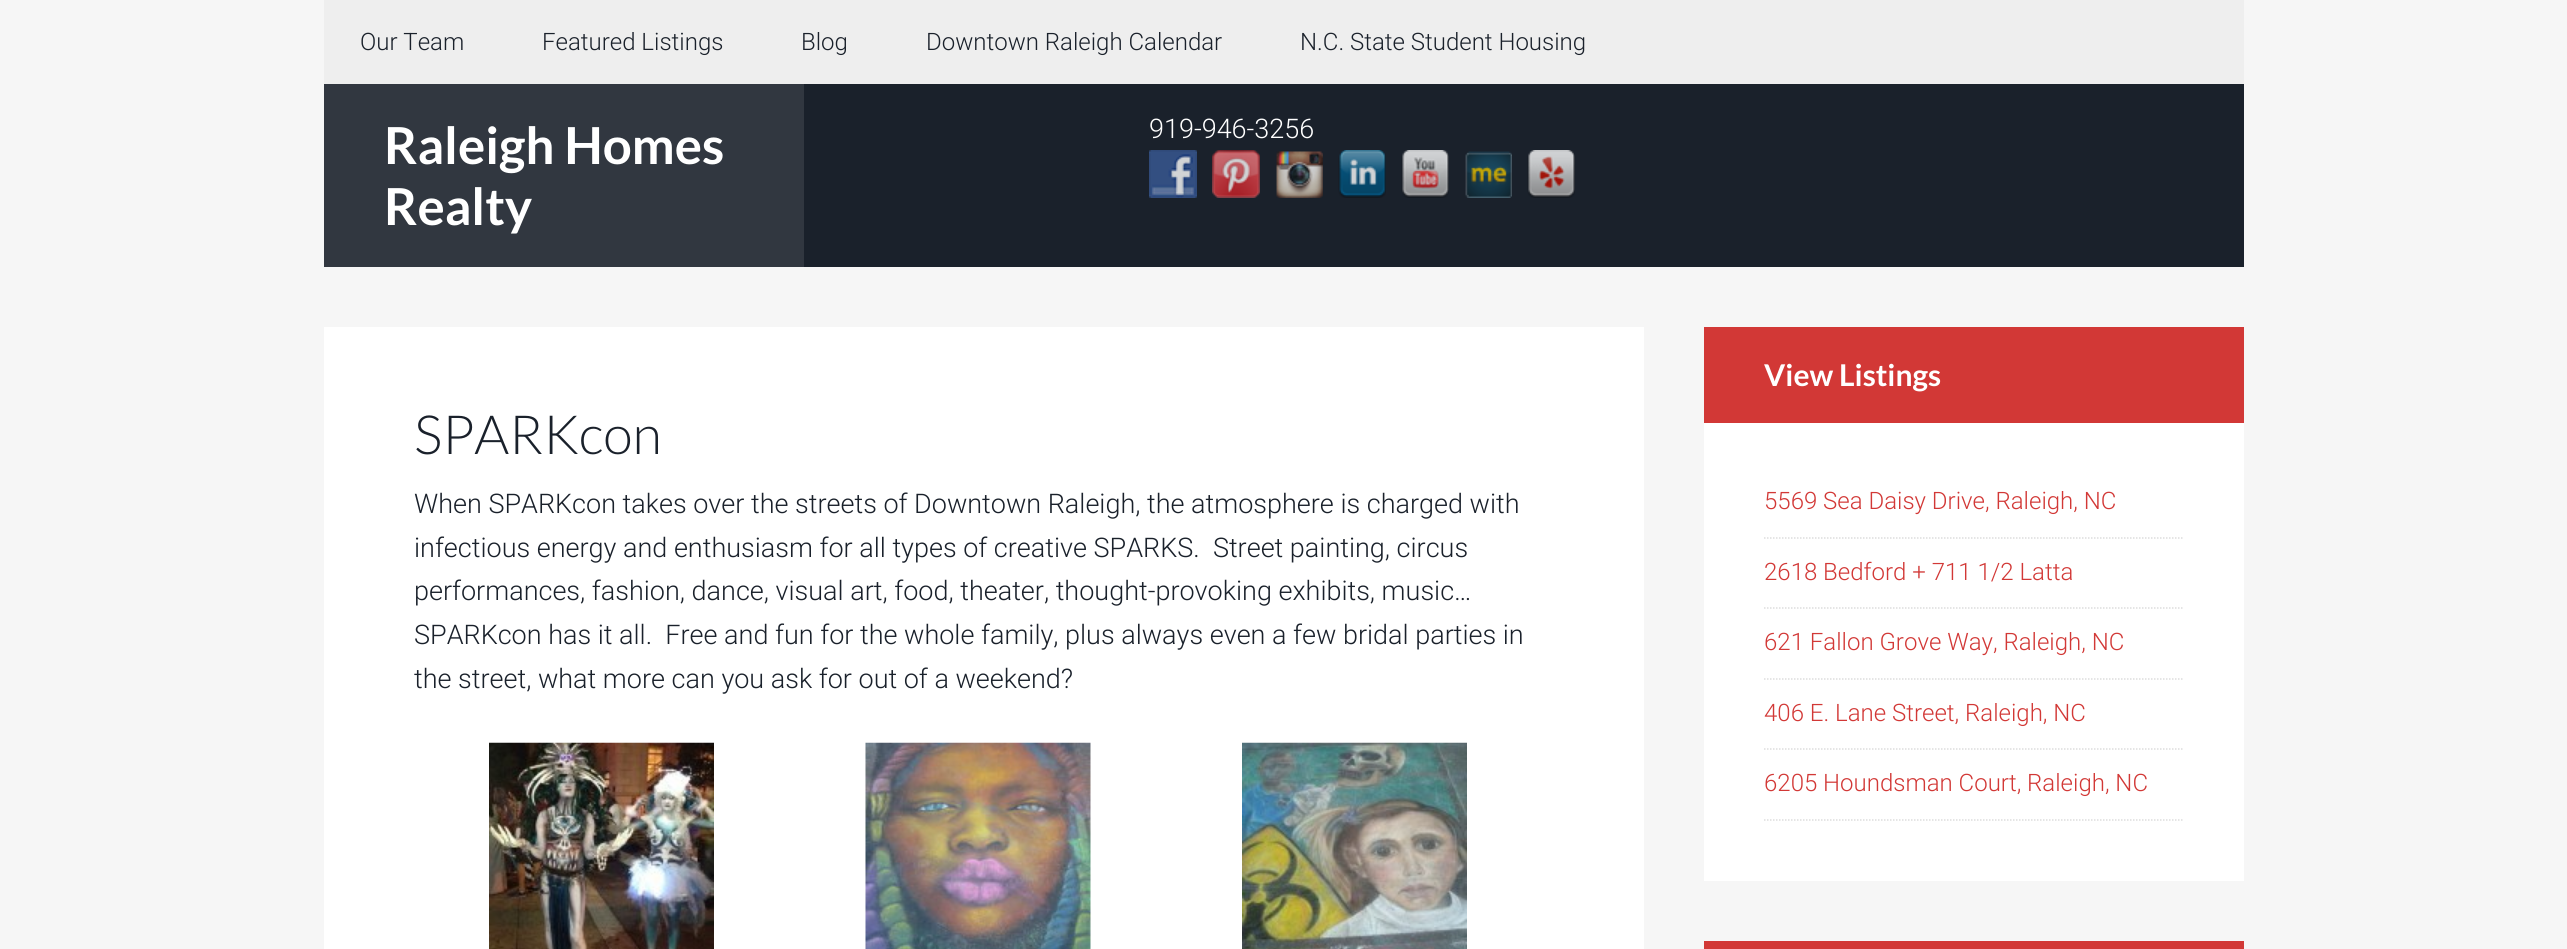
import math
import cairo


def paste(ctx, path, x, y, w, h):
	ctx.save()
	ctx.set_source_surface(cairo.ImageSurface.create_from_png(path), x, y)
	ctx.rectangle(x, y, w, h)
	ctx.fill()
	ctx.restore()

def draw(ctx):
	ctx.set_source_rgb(0.961, 0.961, 0.961)
	ctx.paint()
	ctx.set_source_rgb(0.933, 0.933, 0.933)
	ctx.rectangle(324, 0, 1920, 84)
	ctx.fill()
	ctx.select_font_face('Roboto Light')
	ctx.set_font_size(24)
	ctx.set_source_rgb(0.102, 0.129, 0.169)
	for x, y, s in [
		(360, 50, 'Our Team'),
		(542, 50, 'Featured Listings'),
		(801, 50, 'Blog'),
		(926, 50, 'Downtown Raleigh Calendar'),
		(1300, 50, 'N.C. State Student Housing'),
	]:
		ctx.move_to(x, y)
		ctx.show_text(s)
	ctx.rectangle(804, 84, 1440, 183)
	ctx.fill()
	ctx.set_source_rgb(0.192, 0.216, 0.251)
	ctx.rectangle(324, 84, 480, 183)
	ctx.fill()
	ctx.select_font_face('Lato', cairo.FONT_SLANT_NORMAL, cairo.FONT_WEIGHT_BOLD)
	ctx.set_font_size(51)
	ctx.set_source_rgb(1, 1, 1)
	ctx.move_to(384, 164)
	ctx.show_text('Raleigh Homes')
	ctx.move_to(384, 225)
	ctx.show_text('Realty')
	ctx.select_font_face('Roboto Light')
	ctx.set_font_size(27)
	ctx.move_to(1149, 138)
	ctx.show_text('919-946-3256')
	paste(ctx, 'media/1.png', 1149, 150, 48, 48)
	paste(ctx, 'media/2.png', 1212, 150, 48, 48)
	paste(ctx, 'media/3.png', 1276, 151, 47, 47)
	paste(ctx, 'media/4.png', 1338, 150, 48, 48)
	paste(ctx, 'media/5.png', 1401, 150, 48, 48)
	paste(ctx, 'media/6.png', 1465, 151, 47, 47)
	paste(ctx, 'media/7.png', 1527, 150, 48, 48)
	ctx.rectangle(324, 327, 1320, 622)
	ctx.fill()
	ctx.select_font_face('Lato Light')
	ctx.set_font_size(54)
	ctx.set_source_rgb(0.102, 0.129, 0.169)
	ctx.move_to(414, 454)
	ctx.show_text('SPARKcon')
	ctx.select_font_face('Roboto Light')
	ctx.set_font_size(27)
	for x, y, s in [
		(414, 513, 'When SPARKcon takes over the streets of Downtown Raleigh, the atmosphere is charged with'),
		(414, 557, 'infectious energy and enthusiasm for all types of creative SPARKS.  Street painting, circus'),
		(414, 600, 'performances, fashion, dance, visual art, food, theater, thought-provoking exhibits, music…'),
		(414, 644, 'SPARKcon has it all.  Free and fun for the whole family, plus always even a few bridal parties in'),
		(414, 688, 'the street, what more can you ask for out of a weekend?'),
	]:
		ctx.move_to(x, y)
		ctx.show_text(s)
	paste(ctx, 'media/8.png', 489, 742, 225, 207)
	paste(ctx, 'media/9.png', 865, 742, 226, 207)
	paste(ctx, 'media/10.png', 1242, 742, 225, 207)
	ctx.set_source_rgb(1, 1, 1)
	ctx.rectangle(1704, 423, 540, 458)
	ctx.fill()
	ctx.set_source_rgb(0.824, 0.22, 0.212)
	ctx.rectangle(1704, 327, 540, 96)
	ctx.fill()
	ctx.select_font_face('Lato', cairo.FONT_SLANT_NORMAL, cairo.FONT_WEIGHT_BOLD)
	ctx.set_font_size(30)
	ctx.set_source_rgb(1, 1, 1)
	ctx.move_to(1764, 386)
	ctx.show_text('View Listings')
	ctx.new_path()
	ctx.move_to(1764, 538)
	ctx.line_to(2184, 538)
	ctx.set_source_rgb(0.867, 0.867, 0.867)
	ctx.set_line_width(1.5)
	ctx.set_dash([1.5, 1.5])
	ctx.stroke()
	ctx.select_font_face('Roboto Light')
	ctx.set_font_size(24)
	ctx.set_source_rgb(0.824, 0.22, 0.212)
	ctx.move_to(1764, 509)
	ctx.show_text('5569 Sea Daisy Drive, Raleigh, NC')
	ctx.new_path()
	ctx.move_to(1764, 608)
	ctx.line_to(2184, 608)
	ctx.set_source_rgb(0.867, 0.867, 0.867)
	ctx.stroke()
	ctx.set_source_rgb(0.824, 0.22, 0.212)
	ctx.move_to(1764, 580)
	ctx.show_text('2618 Bedford + 711 1/2 Latta')
	ctx.new_path()
	ctx.move_to(1764, 679)
	ctx.line_to(2184, 679)
	ctx.set_source_rgb(0.867, 0.867, 0.867)
	ctx.stroke()
	ctx.set_source_rgb(0.824, 0.22, 0.212)
	ctx.move_to(1764, 650)
	ctx.show_text('621 Fallon Grove Way, Raleigh, NC')
	ctx.new_path()
	ctx.move_to(1764, 749)
	ctx.line_to(2184, 749)
	ctx.set_source_rgb(0.867, 0.867, 0.867)
	ctx.stroke()
	ctx.set_source_rgb(0.824, 0.22, 0.212)
	ctx.move_to(1764, 721)
	ctx.show_text('406 E. Lane Street, Raleigh, NC')
	ctx.new_path()
	ctx.move_to(1764, 820)
	ctx.line_to(2184, 820)
	ctx.set_source_rgb(0.867, 0.867, 0.867)
	ctx.stroke()
	ctx.set_source_rgb(0.824, 0.22, 0.212)
	ctx.move_to(1764, 791)
	ctx.show_text('6205 Houndsman Court, Raleigh, NC')
	ctx.rectangle(1704, 941, 540, 8)
	ctx.fill()


surface = cairo.ImageSurface(cairo.FORMAT_RGB24, 2567, 949)
ctx = cairo.Context(surface)
options = cairo.FontOptions()
options.set_hint_metrics(cairo.HINT_METRICS_OFF)
options.set_hint_style(cairo.HINT_STYLE_NONE)
ctx.set_font_options(options)
ctx.set_miter_limit(4)
draw(ctx)
surface.write_to_png('image.png')
